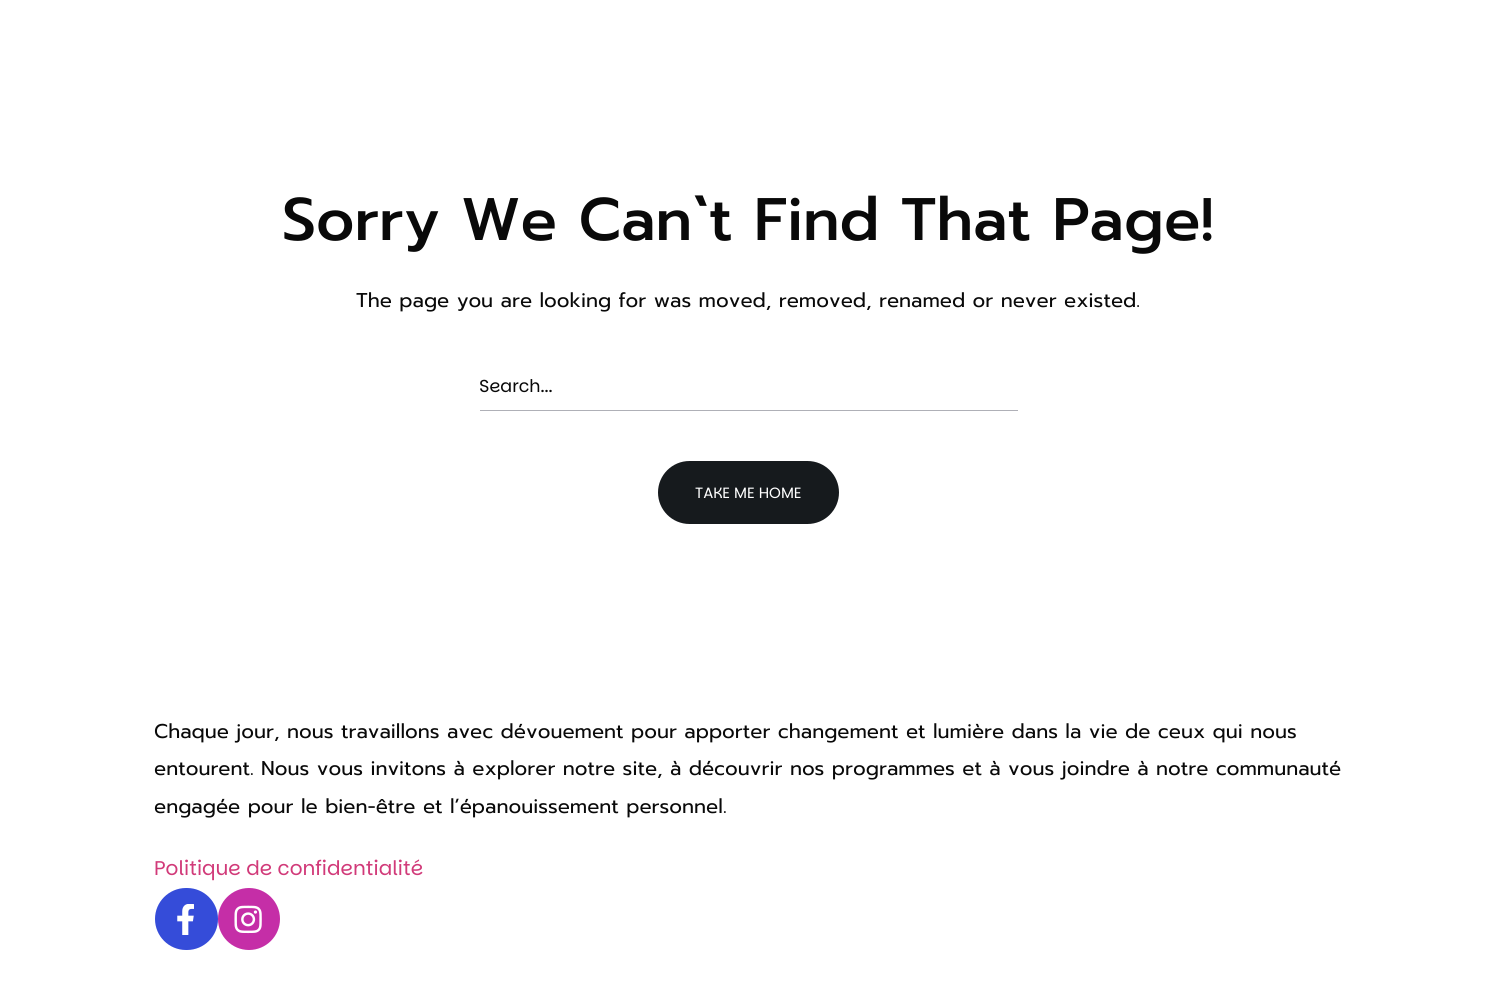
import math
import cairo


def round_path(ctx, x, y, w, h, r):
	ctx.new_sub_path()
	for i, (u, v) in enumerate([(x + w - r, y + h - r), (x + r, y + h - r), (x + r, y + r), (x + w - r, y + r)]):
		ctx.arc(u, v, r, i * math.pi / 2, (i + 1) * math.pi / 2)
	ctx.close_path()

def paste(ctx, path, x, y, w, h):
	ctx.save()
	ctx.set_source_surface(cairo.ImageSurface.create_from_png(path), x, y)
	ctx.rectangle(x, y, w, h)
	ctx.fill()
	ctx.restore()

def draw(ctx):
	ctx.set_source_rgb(1, 1, 1)
	ctx.paint()
	ctx.select_font_face('Prompt Medium')
	ctx.set_font_size(60)
	ctx.set_source_rgb(0.039, 0.039, 0.039)
	ctx.move_to(282, 240)
	ctx.show_text('Sorry We Can`t Find That Page!')
	ctx.select_font_face('Prompt')
	ctx.set_font_size(20)
	ctx.move_to(356, 307)
	ctx.show_text('The page you are looking for was moved, removed, renamed or never existed.')
	ctx.set_source_rgb(0.686, 0.69, 0.718)
	ctx.rectangle(480, 410, 538, 1)
	ctx.fill()
	ctx.select_font_face('Parkinsans')
	ctx.set_font_size(17.5)
	ctx.set_source_rgb(0.039, 0.039, 0.039)
	ctx.move_to(479, 392)
	ctx.show_text('Search...')
	ctx.set_source_rgb(0.086, 0.102, 0.114)
	round_path(ctx, 658, 461, 181, 63, 31.5)
	ctx.fill()
	ctx.set_font_size(15)
	ctx.set_source_rgb(1, 1, 1)
	ctx.move_to(695, 498)
	ctx.show_text('TAKE ME HOME')
	ctx.select_font_face('Prompt')
	ctx.set_font_size(20)
	ctx.set_source_rgb(0.039, 0.039, 0.039)
	for x, y, s in [
		(154, 738, 'Chaque jour, nous travaillons avec dévouement pour apporter changement et lumière dans la vie de ceux qui nous'),
		(154, 775, 'entourent. Nous vous invitons à explorer notre site, à découvrir nos programmes et à vous joindre à notre communauté'),
		(154, 813, 'engagée pour le bien-être et l’épanouissement personnel.'),
	]:
		ctx.move_to(x, y)
		ctx.show_text(s)
	ctx.select_font_face('Parkinsans')
	ctx.set_source_rgb(0.82, 0.227, 0.475)
	ctx.move_to(154, 875)
	ctx.show_text('Politique de confidentialité')
	ctx.set_source_rgb(0.208, 0.298, 0.851)
	round_path(ctx, 155, 888, 63, 62, 31)
	ctx.fill()
	paste(ctx, 'media/1.png', 177, 904, 17, 31)
	ctx.set_source_rgb(0.773, 0.18, 0.655)
	ctx.arc(249, 919, 31, 0, 2 * math.pi)
	ctx.fill()
	paste(ctx, 'media/2.png', 234, 905, 28, 29)


surface = cairo.ImageSurface(cairo.FORMAT_RGB24, 1496, 990)
ctx = cairo.Context(surface)
options = cairo.FontOptions()
options.set_hint_metrics(cairo.HINT_METRICS_OFF)
options.set_hint_style(cairo.HINT_STYLE_NONE)
ctx.set_font_options(options)
ctx.set_miter_limit(4)
draw(ctx)
surface.write_to_png('image.png')
